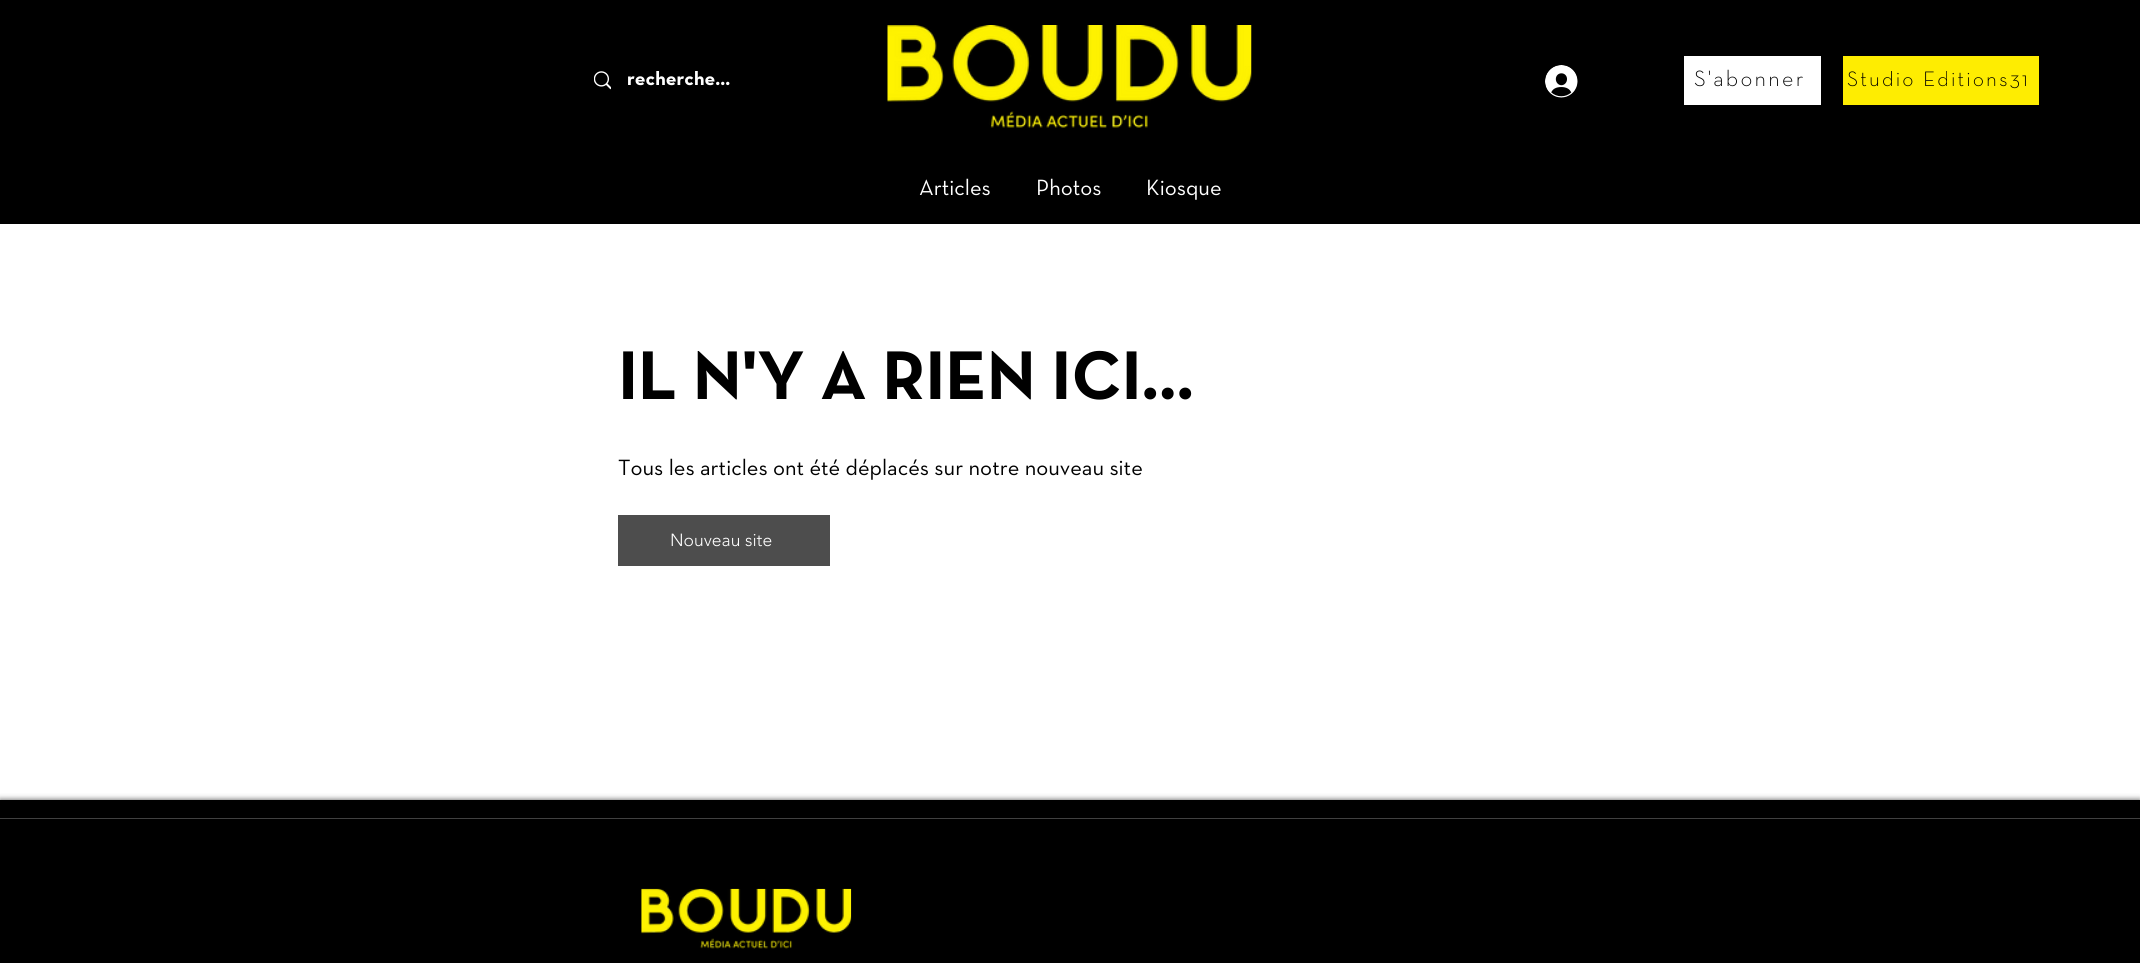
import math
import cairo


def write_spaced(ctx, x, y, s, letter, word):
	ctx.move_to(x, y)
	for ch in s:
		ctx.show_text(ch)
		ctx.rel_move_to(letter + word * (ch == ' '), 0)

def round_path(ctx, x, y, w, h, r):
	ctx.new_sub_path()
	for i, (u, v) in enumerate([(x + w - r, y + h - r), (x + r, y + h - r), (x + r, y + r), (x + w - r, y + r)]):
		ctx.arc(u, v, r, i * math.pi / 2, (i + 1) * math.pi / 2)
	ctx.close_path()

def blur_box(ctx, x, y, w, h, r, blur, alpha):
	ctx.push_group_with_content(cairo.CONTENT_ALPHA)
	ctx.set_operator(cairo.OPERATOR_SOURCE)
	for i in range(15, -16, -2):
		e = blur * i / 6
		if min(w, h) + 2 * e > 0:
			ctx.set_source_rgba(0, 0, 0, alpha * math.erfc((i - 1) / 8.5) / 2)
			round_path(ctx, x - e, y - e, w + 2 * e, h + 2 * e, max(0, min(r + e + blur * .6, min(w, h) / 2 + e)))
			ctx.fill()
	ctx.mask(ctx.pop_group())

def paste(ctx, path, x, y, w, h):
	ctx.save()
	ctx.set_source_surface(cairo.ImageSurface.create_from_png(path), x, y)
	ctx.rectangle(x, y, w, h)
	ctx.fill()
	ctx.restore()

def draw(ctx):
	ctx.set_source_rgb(1, 1, 1)
	ctx.paint()
	ctx.set_source_rgb(0, 0, 0)
	ctx.rectangle(0, 0, 2140, 224)
	ctx.fill()
	paste(ctx, 'media/1.png', 887, 25, 365, 103)
	paste(ctx, 'media/2.png', 594, 71, 17, 19)
	ctx.save()
	ctx.rectangle(626, 71, 187, 19)
	ctx.clip()
	ctx.select_font_face('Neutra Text', cairo.FONT_SLANT_NORMAL, cairo.FONT_WEIGHT_BOLD)
	ctx.set_font_size(20)
	ctx.set_source_rgb(1, 1, 1)
	ctx.move_to(627, 85)
	ctx.show_text('recherche...')
	ctx.restore()
	paste(ctx, 'media/3.png', 1545, 65, 33, 33)
	ctx.set_source_rgb(1, 1, 1)
	ctx.rectangle(1684, 56, 137, 49)
	ctx.fill()
	ctx.select_font_face('Neutra Text Light')
	ctx.set_font_size(22.5)
	ctx.set_source_rgb(0, 0, 0)
	write_spaced(ctx, 1694, 86, 'S\'abonner', 2.25, 0)
	ctx.set_source_rgb(0.996, 0.929, 0.004)
	ctx.rectangle(1843, 56, 196, 49)
	ctx.fill()
	ctx.save()
	ctx.rectangle(1846, 71, 184, 20)
	ctx.clip()
	ctx.set_font_size(21.25)
	ctx.set_source_rgb(0, 0, 0)
	write_spaced(ctx, 1847, 86, 'Studio Editions31', 2.1, 0)
	ctx.restore()
	ctx.select_font_face('Neutra Text')
	ctx.set_source_rgb(1, 1, 1)
	for x, y, s in [
		(919, 195, 'Articles'),
		(1036, 195, 'Photos'),
		(1146, 195, 'Kiosque'),
	]:
		ctx.move_to(x, y)
		ctx.show_text(s)
	ctx.select_font_face('Neutra Text', cairo.FONT_SLANT_NORMAL, cairo.FONT_WEIGHT_BOLD)
	ctx.set_font_size(70)
	ctx.set_source_rgb(0, 0, 0)
	ctx.move_to(618, 399)
	ctx.show_text('IL N\'Y A RIEN ICI...')
	ctx.select_font_face('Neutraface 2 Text')
	ctx.set_font_size(22.5)
	ctx.move_to(618, 475)
	ctx.show_text('Tous les articles ont été déplacés sur notre nouveau site')
	ctx.set_source_rgb(0.302, 0.302, 0.302)
	ctx.rectangle(618, 515, 212, 51)
	ctx.fill()
	ctx.select_font_face('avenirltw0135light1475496 Light')
	ctx.set_font_size(17.5)
	ctx.set_source_rgb(1, 1, 1)
	ctx.move_to(670, 546)
	ctx.show_text('Nouveau site')
	ctx.set_source_rgb(0, 0, 0)
	blur_box(ctx, 0, 800, 2140, 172, 0, 3, 0.7)
	ctx.set_source_rgb(0, 0, 0)
	ctx.rectangle(0, 800, 2140, 163)
	ctx.fill()
	ctx.set_source_rgb(0.251, 0.251, 0.251)
	ctx.rectangle(0, 818, 2140, 1)
	ctx.fill()
	paste(ctx, 'media/4.png', 641, 888, 211, 61)


surface = cairo.ImageSurface(cairo.FORMAT_RGB24, 2140, 963)
ctx = cairo.Context(surface)
options = cairo.FontOptions()
options.set_hint_metrics(cairo.HINT_METRICS_OFF)
options.set_hint_style(cairo.HINT_STYLE_NONE)
ctx.set_font_options(options)
ctx.set_miter_limit(4)
draw(ctx)
surface.write_to_png('image.png')
